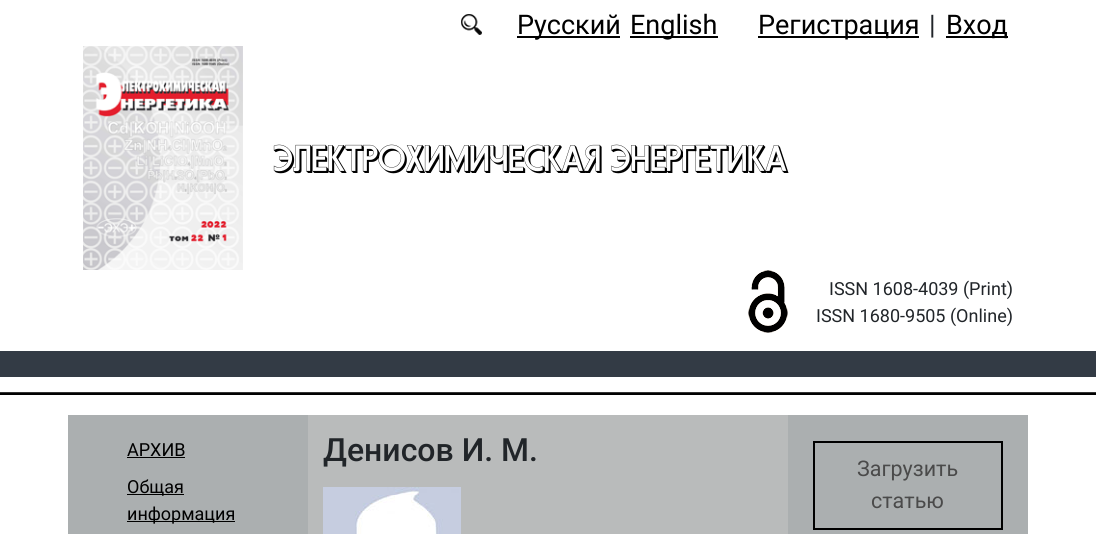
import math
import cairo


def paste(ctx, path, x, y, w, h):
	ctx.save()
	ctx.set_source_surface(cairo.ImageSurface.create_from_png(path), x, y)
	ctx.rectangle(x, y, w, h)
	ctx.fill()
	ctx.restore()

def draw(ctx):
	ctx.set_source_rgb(1, 1, 1)
	ctx.paint()
	paste(ctx, 'media/1.png', 461, 14, 21, 21)
	ctx.set_source_rgb(0, 0, 0)
	ctx.rectangle(517, 36, 103, 2)
	ctx.fill()
	ctx.select_font_face('Roboto')
	ctx.set_font_size(27)
	ctx.move_to(517, 34)
	ctx.show_text('Русский')
	ctx.rectangle(630, 36, 88, 2)
	ctx.fill()
	ctx.move_to(630, 34)
	ctx.show_text('English')
	ctx.rectangle(758, 36, 161, 2)
	ctx.fill()
	ctx.move_to(758, 34)
	ctx.show_text('Регистрация')
	ctx.set_source_rgb(0.129, 0.145, 0.161)
	ctx.move_to(929, 34)
	ctx.show_text('|')
	ctx.set_source_rgb(0, 0, 0)
	ctx.rectangle(946, 36, 62, 2)
	ctx.fill()
	ctx.move_to(946, 34)
	ctx.show_text('Вход')
	paste(ctx, 'media/2.png', 83, 46, 160, 224)
	ctx.select_font_face('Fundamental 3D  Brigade')
	ctx.set_font_size(36)
	ctx.move_to(273, 171)
	ctx.show_text('ЭЛЕКТРОХИМИЧЕСКАЯ ЭНЕРГЕТИКА')
	paste(ctx, 'media/3.png', 748, 270, 40, 63)
	ctx.select_font_face('Roboto')
	ctx.set_font_size(18)
	ctx.set_source_rgb(0.129, 0.145, 0.161)
	ctx.move_to(829, 295)
	ctx.show_text('ISSN 1608-4039 (Print)')
	ctx.move_to(816, 322)
	ctx.show_text('ISSN 1680-9505 (Online)')
	ctx.set_source_rgb(0.2, 0.231, 0.271)
	ctx.rectangle(0, 351, 1096, 26)
	ctx.fill()
	ctx.set_source_rgb(0.2, 0.2, 0.2)
	ctx.rectangle(0, 392, 1096, 1)
	ctx.fill()
	ctx.set_source_rgb(0, 0, 0)
	ctx.rectangle(0, 393, 1096, 2)
	ctx.fill()
	ctx.set_source_rgb(0.671, 0.686, 0.69)
	ctx.rectangle(68, 415, 240, 119)
	ctx.fill()
	ctx.set_source_rgb(0, 0, 0)
	ctx.move_to(127, 456)
	ctx.show_text('АРХИВ')
	ctx.rectangle(127, 457, 58, 1)
	ctx.fill()
	ctx.rectangle(127, 494, 57, 1)
	ctx.fill()
	ctx.move_to(127, 493)
	ctx.show_text('Общая')
	ctx.rectangle(127, 521, 108, 1)
	ctx.fill()
	ctx.move_to(127, 520)
	ctx.show_text('информация')
	ctx.set_source_rgb(0.725, 0.733, 0.733)
	ctx.rectangle(308, 415, 480, 119)
	ctx.fill()
	ctx.select_font_face('Roboto Medium')
	ctx.set_font_size(32)
	ctx.set_source_rgb(0.129, 0.145, 0.161)
	ctx.move_to(323, 461)
	ctx.show_text('Денисов И. М.')
	paste(ctx, 'media/4.png', 323, 487, 138, 47)
	ctx.set_source_rgb(0.671, 0.686, 0.69)
	ctx.rectangle(788, 415, 240, 119)
	ctx.fill()
	ctx.rectangle(814, 442, 188, 87)
	ctx.set_source_rgb(0, 0, 0)
	ctx.stroke()
	ctx.select_font_face('Roboto')
	ctx.set_font_size(21.5)
	ctx.set_source_rgb(0.29, 0.29, 0.29)
	ctx.move_to(857, 476)
	ctx.show_text('Загрузить')
	ctx.move_to(871, 508)
	ctx.show_text('статью')


surface = cairo.ImageSurface(cairo.FORMAT_RGB24, 1096, 534)
ctx = cairo.Context(surface)
options = cairo.FontOptions()
options.set_hint_metrics(cairo.HINT_METRICS_OFF)
options.set_hint_style(cairo.HINT_STYLE_NONE)
ctx.set_font_options(options)
ctx.set_miter_limit(4)
draw(ctx)
surface.write_to_png('image.png')
